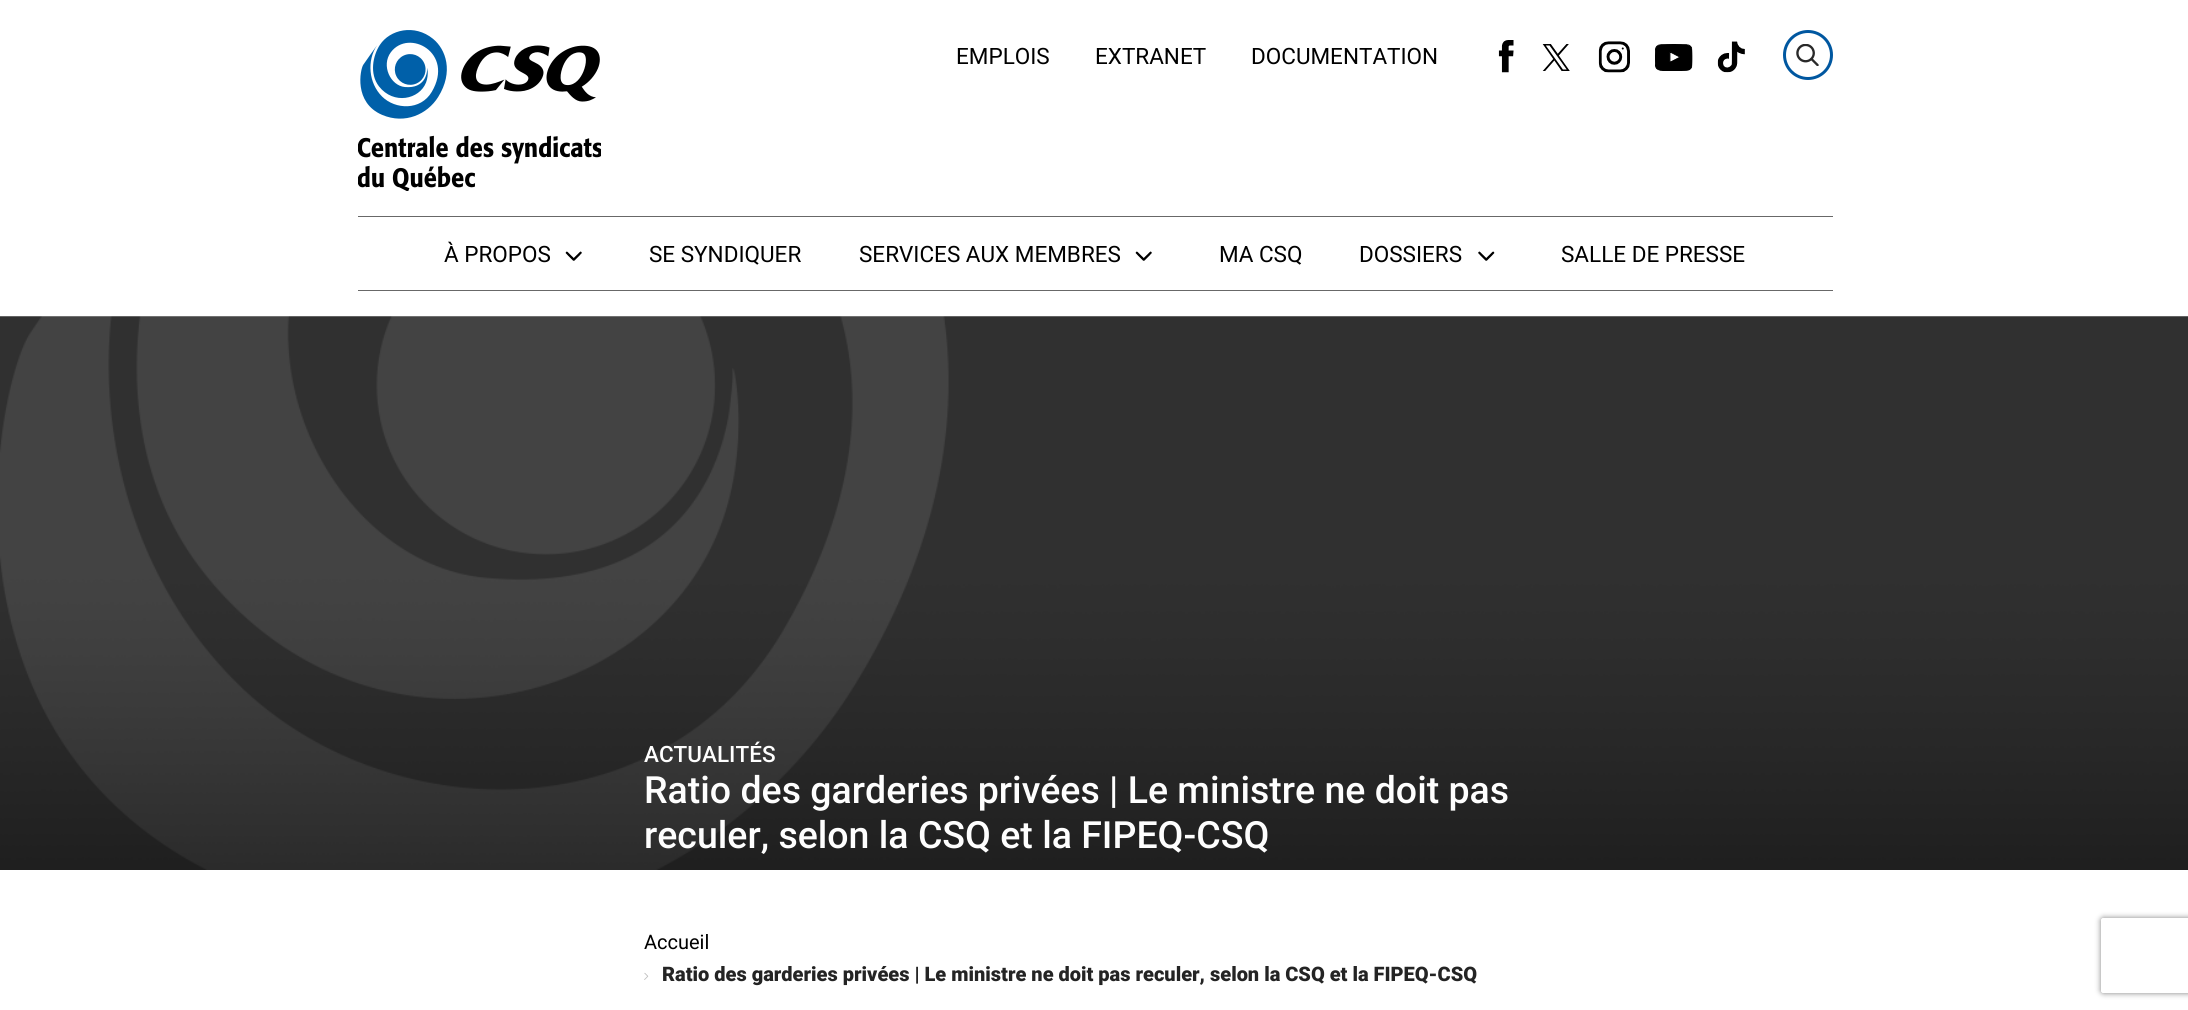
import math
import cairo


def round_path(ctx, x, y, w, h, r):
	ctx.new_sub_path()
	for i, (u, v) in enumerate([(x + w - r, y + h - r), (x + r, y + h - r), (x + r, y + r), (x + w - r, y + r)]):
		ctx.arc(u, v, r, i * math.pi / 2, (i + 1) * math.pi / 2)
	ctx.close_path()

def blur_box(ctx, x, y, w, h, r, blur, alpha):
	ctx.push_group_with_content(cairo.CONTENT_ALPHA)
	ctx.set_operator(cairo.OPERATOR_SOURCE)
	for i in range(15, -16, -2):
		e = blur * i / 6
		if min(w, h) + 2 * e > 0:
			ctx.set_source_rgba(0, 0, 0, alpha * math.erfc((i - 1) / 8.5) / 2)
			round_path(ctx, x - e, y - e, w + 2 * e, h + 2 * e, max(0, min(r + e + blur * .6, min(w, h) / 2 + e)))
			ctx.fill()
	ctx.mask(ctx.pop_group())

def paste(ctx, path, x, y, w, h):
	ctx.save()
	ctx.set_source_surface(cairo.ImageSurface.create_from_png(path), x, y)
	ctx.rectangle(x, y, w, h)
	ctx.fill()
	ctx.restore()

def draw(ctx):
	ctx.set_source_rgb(1, 1, 1)
	ctx.paint()
	paste(ctx, 'media/1.png', 358, 30, 243, 161)
	ctx.select_font_face('Roboto')
	ctx.set_font_size(22.5)
	ctx.set_source_rgb(0, 0, 0)
	for x, y, s in [
		(956, 64, 'EMPLOIS'),
		(1095, 64, 'EXTRANET'),
		(1251, 64, 'DOCUMENTATION'),
	]:
		ctx.move_to(x, y)
		ctx.show_text(s)
	paste(ctx, 'media/2.png', 1498, 40, 16, 33)
	paste(ctx, 'media/3.png', 1542, 44, 28, 27)
	paste(ctx, 'media/4.png', 1598, 41, 32, 32)
	paste(ctx, 'media/5.png', 1655, 44, 38, 27)
	paste(ctx, 'media/6.png', 1717, 41, 28, 32)
	paste(ctx, 'media/7.png', 1796, 44, 23, 22)
	ctx.arc(1808, 55, 23.5, 0, 2 * math.pi)
	ctx.set_source_rgb(0, 0.341, 0.627)
	ctx.set_line_width(3)
	ctx.stroke()
	ctx.set_source_rgb(0.408, 0.408, 0.408)
	ctx.rectangle(358, 216, 1475, 1)
	ctx.fill()
	ctx.rectangle(358, 290, 1475, 1)
	ctx.fill()
	ctx.set_source_rgb(0, 0, 0)
	ctx.move_to(444, 262)
	ctx.show_text('À PROPOS')
	paste(ctx, 'media/8.png', 565, 251, 17, 10)
	ctx.move_to(649, 262)
	ctx.show_text('SE SYNDIQUER')
	ctx.move_to(859, 262)
	ctx.show_text('SERVICES AUX MEMBRES')
	paste(ctx, 'media/8.png', 1135, 251, 17, 10)
	ctx.move_to(1219, 262)
	ctx.show_text('MA CSQ')
	ctx.move_to(1359, 262)
	ctx.show_text('DOSSIERS')
	paste(ctx, 'media/9.png', 1478, 251, 17, 10)
	ctx.move_to(1561, 262)
	ctx.show_text('SALLE DE PRESSE')
	paste(ctx, 'media/10.png', 0, 316, 2188, 554)
	ctx.select_font_face('Roboto Medium')
	ctx.set_source_rgb(0.996, 0.996, 0.996)
	ctx.move_to(644, 762)
	ctx.show_text('ACTUALITÉS')
	ctx.set_font_size(37.5)
	ctx.move_to(644, 803)
	ctx.show_text('Ratio des garderies privées | Le ministre ne doit pas')
	ctx.move_to(644, 848)
	ctx.show_text('reculer, selon la CSQ et la FIPEQ-CSQ')
	ctx.select_font_face('Roboto')
	ctx.set_font_size(20)
	ctx.set_source_rgb(0, 0, 0)
	ctx.move_to(644, 949)
	ctx.show_text('Accueil')
	paste(ctx, 'media/11.png', 644, 972, 5, 8)
	ctx.select_font_face('Roboto Black')
	ctx.set_source_rgb(0.141, 0.141, 0.141)
	ctx.move_to(662, 981)
	ctx.show_text('Ratio des garderies privées | Le ministre ne doit pas reculer, selon la CSQ et la FIPEQ-CSQ')
	ctx.save()
	ctx.set_fill_rule(cairo.FILL_RULE_EVEN_ODD)
	ctx.new_path()
	ctx.move_to(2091, 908)
	ctx.line_to(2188, 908)
	ctx.line_to(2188, 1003)
	ctx.line_to(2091, 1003)
	ctx.close_path()
	ctx.move_to(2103.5, 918)
	ctx.line_to(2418.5, 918)
	ctx.curve_to(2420, 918, 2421, 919, 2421, 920.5)
	ctx.line_to(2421, 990.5)
	ctx.curve_to(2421, 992, 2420, 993, 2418.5, 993)
	ctx.line_to(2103.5, 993)
	ctx.curve_to(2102, 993, 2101, 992, 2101, 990.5)
	ctx.line_to(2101, 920.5)
	ctx.curve_to(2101, 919, 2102, 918, 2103.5, 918)
	ctx.close_path()
	ctx.clip()
	ctx.set_source_rgb(0.502, 0.502, 0.502)
	blur_box(ctx, 2101, 918, 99, 75, 2.5, 3, 1)
	ctx.restore()


surface = cairo.ImageSurface(cairo.FORMAT_RGB24, 2188, 1010)
ctx = cairo.Context(surface)
options = cairo.FontOptions()
options.set_hint_metrics(cairo.HINT_METRICS_OFF)
options.set_hint_style(cairo.HINT_STYLE_NONE)
ctx.set_font_options(options)
ctx.set_miter_limit(4)
draw(ctx)
surface.write_to_png('image.png')
